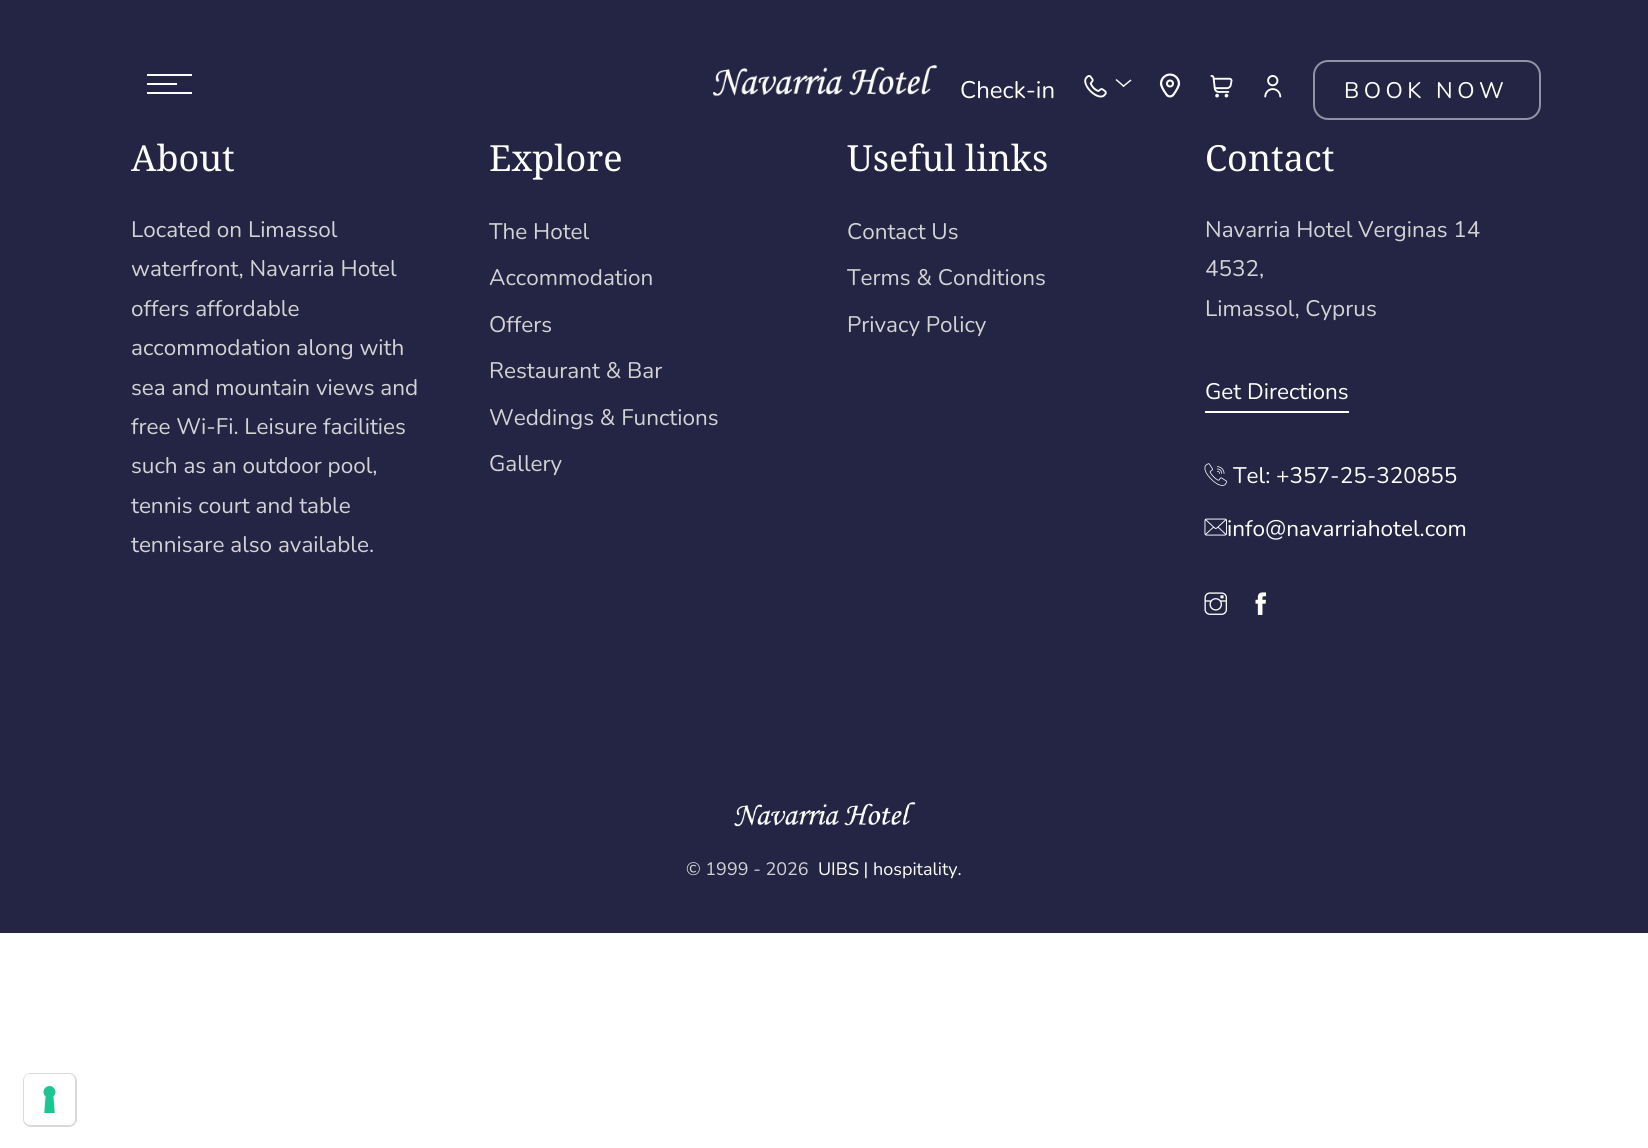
import math
import cairo


def write_spaced(ctx, x, y, s, letter, word):
	ctx.move_to(x, y)
	for ch in s:
		ctx.show_text(ch)
		ctx.rel_move_to(letter + word * (ch == ' '), 0)

def round_path(ctx, x, y, w, h, r):
	ctx.new_sub_path()
	for i, (u, v) in enumerate([(x + w - r, y + h - r), (x + r, y + h - r), (x + r, y + r), (x + w - r, y + r)]):
		ctx.arc(u, v, r, i * math.pi / 2, (i + 1) * math.pi / 2)
	ctx.close_path()

def paste(ctx, path, x, y, w, h):
	ctx.save()
	ctx.set_source_surface(cairo.ImageSurface.create_from_png(path), x, y)
	ctx.rectangle(x, y, w, h)
	ctx.fill()
	ctx.restore()

def draw(ctx):
	ctx.set_source_rgb(1, 1, 1)
	ctx.paint()
	ctx.set_source_rgb(0.141, 0.141, 0.267)
	ctx.rectangle(0, 0, 1648, 933)
	ctx.fill()
	ctx.set_source_rgb(1, 1, 1)
	ctx.rectangle(147, 83, 30, 2)
	ctx.rectangle(147, 74, 45, 2)
	ctx.rectangle(147, 92, 45, 2)
	ctx.fill()
	paste(ctx, 'media/1.png', 713, 65, 225, 32)
	ctx.select_font_face('Nunito')
	ctx.set_font_size(24)
	ctx.move_to(960, 98)
	ctx.show_text('Check-in')
	paste(ctx, 'media/2.png', 1084, 75, 23, 23)
	ctx.new_path()
	ctx.move_to(1122.5, 86)
	ctx.line_to(1130.5, 79.5)
	ctx.line_to(1131.5, 80.5)
	ctx.line_to(1123.5, 87)
	ctx.close_path()
	ctx.fill()
	ctx.new_path()
	ctx.move_to(1115.5, 80)
	ctx.line_to(1116.5, 79)
	ctx.line_to(1124.5, 86)
	ctx.line_to(1123.5, 87)
	ctx.close_path()
	ctx.fill()
	paste(ctx, 'media/3.png', 1159, 73, 22, 25)
	paste(ctx, 'media/4.png', 1210, 75, 23, 23)
	paste(ctx, 'media/5.png', 1264, 75, 18, 23)
	round_path(ctx, 1314, 61, 226, 58, 14)
	ctx.set_source_rgb(0.573, 0.573, 0.635)
	ctx.stroke()
	ctx.set_font_size(22.5)
	ctx.set_source_rgb(1, 1, 1)
	write_spaced(ctx, 1344, 98, 'BOOK NOW', 4.5, 0)
	ctx.select_font_face('Noto Serif')
	ctx.set_font_size(36)
	ctx.move_to(131, 171)
	ctx.show_text('About')
	ctx.select_font_face('Nunito')
	ctx.set_font_size(22.5)
	ctx.set_source_rgb(0.827, 0.827, 0.827)
	for x, y, s in [
		(131, 237, 'Located on Limassol'),
		(131, 276, 'waterfront, Navarria Hotel'),
		(131, 316, 'offers affordable'),
		(131, 355, 'accommodation along with'),
		(131, 395, 'sea and mountain views and'),
		(131, 434, 'free Wi-Fi. Leisure facilities'),
		(131, 473, 'such as an outdoor pool,'),
		(131, 513, 'tennis court and table'),
		(131, 552, 'tennisare also available.'),
	]:
		ctx.move_to(x, y)
		ctx.show_text(s)
	ctx.select_font_face('Noto Serif')
	ctx.set_font_size(36)
	ctx.set_source_rgb(1, 1, 1)
	ctx.move_to(489, 171)
	ctx.show_text('Explore')
	ctx.select_font_face('Nunito')
	ctx.set_font_size(22.5)
	ctx.set_source_rgb(0.827, 0.827, 0.827)
	for x, y, s in [
		(489, 239, 'The Hotel'),
		(489, 285, 'Accommodation'),
		(489, 332, 'Offers'),
		(489, 378, 'Restaurant & Bar'),
		(489, 425, 'Weddings & Functions'),
		(489, 471, 'Gallery'),
	]:
		ctx.move_to(x, y)
		ctx.show_text(s)
	ctx.select_font_face('Noto Serif')
	ctx.set_font_size(36)
	ctx.set_source_rgb(1, 1, 1)
	ctx.move_to(847, 171)
	ctx.show_text('Useful links')
	ctx.select_font_face('Nunito')
	ctx.set_font_size(22.5)
	ctx.set_source_rgb(0.827, 0.827, 0.827)
	for x, y, s in [
		(847, 239, 'Contact Us'),
		(847, 285, 'Terms & Conditions'),
		(847, 332, 'Privacy Policy'),
	]:
		ctx.move_to(x, y)
		ctx.show_text(s)
	ctx.select_font_face('Noto Serif')
	ctx.set_font_size(36)
	ctx.set_source_rgb(1, 1, 1)
	ctx.move_to(1205, 171)
	ctx.show_text('Contact')
	ctx.select_font_face('Nunito')
	ctx.set_font_size(22.5)
	ctx.set_source_rgb(0.827, 0.827, 0.827)
	for x, y, s in [
		(1205, 237, 'Navarria Hotel Verginas 14'),
		(1205, 276, '4532,'),
		(1205, 316, 'Limassol, Cyprus'),
	]:
		ctx.move_to(x, y)
		ctx.show_text(s)
	ctx.set_source_rgb(1, 1, 1)
	ctx.move_to(1205, 399)
	ctx.show_text('Get Directions')
	ctx.rectangle(1205, 411, 144, 2)
	ctx.fill()
	paste(ctx, 'media/6.png', 1204, 463, 23, 23)
	ctx.move_to(1233, 483)
	ctx.show_text('Tel: +357-25-320855')
	paste(ctx, 'media/7.png', 1204, 518, 23, 18)
	ctx.move_to(1227, 536)
	ctx.show_text('info@navarriahotel.com')
	paste(ctx, 'media/8.png', 1204, 592, 23, 23)
	paste(ctx, 'media/9.png', 1255, 592, 11, 23)
	paste(ctx, 'media/10.png', 734, 802, 182, 25)
	ctx.set_font_size(18)
	ctx.set_source_rgb(0.827, 0.827, 0.827)
	ctx.move_to(686, 875)
	ctx.show_text('© 1999 - 2026')
	ctx.set_source_rgb(1, 1, 1)
	ctx.move_to(818, 875)
	ctx.show_text('UIBS | hospitality.')
	round_path(ctx, 24, 1074, 52, 52, 7)
	ctx.set_source_rgb(0.851, 0.851, 0.851)
	ctx.stroke()
	ctx.set_source_rgb(1, 1, 1)
	round_path(ctx, 24, 1074, 51, 51, 6)
	ctx.fill()
	paste(ctx, 'media/11.png', 43, 1086, 13, 27)


surface = cairo.ImageSurface(cairo.FORMAT_RGB24, 1648, 1148)
ctx = cairo.Context(surface)
options = cairo.FontOptions()
options.set_hint_metrics(cairo.HINT_METRICS_OFF)
options.set_hint_style(cairo.HINT_STYLE_NONE)
ctx.set_font_options(options)
ctx.set_miter_limit(4)
draw(ctx)
surface.write_to_png('image.png')
